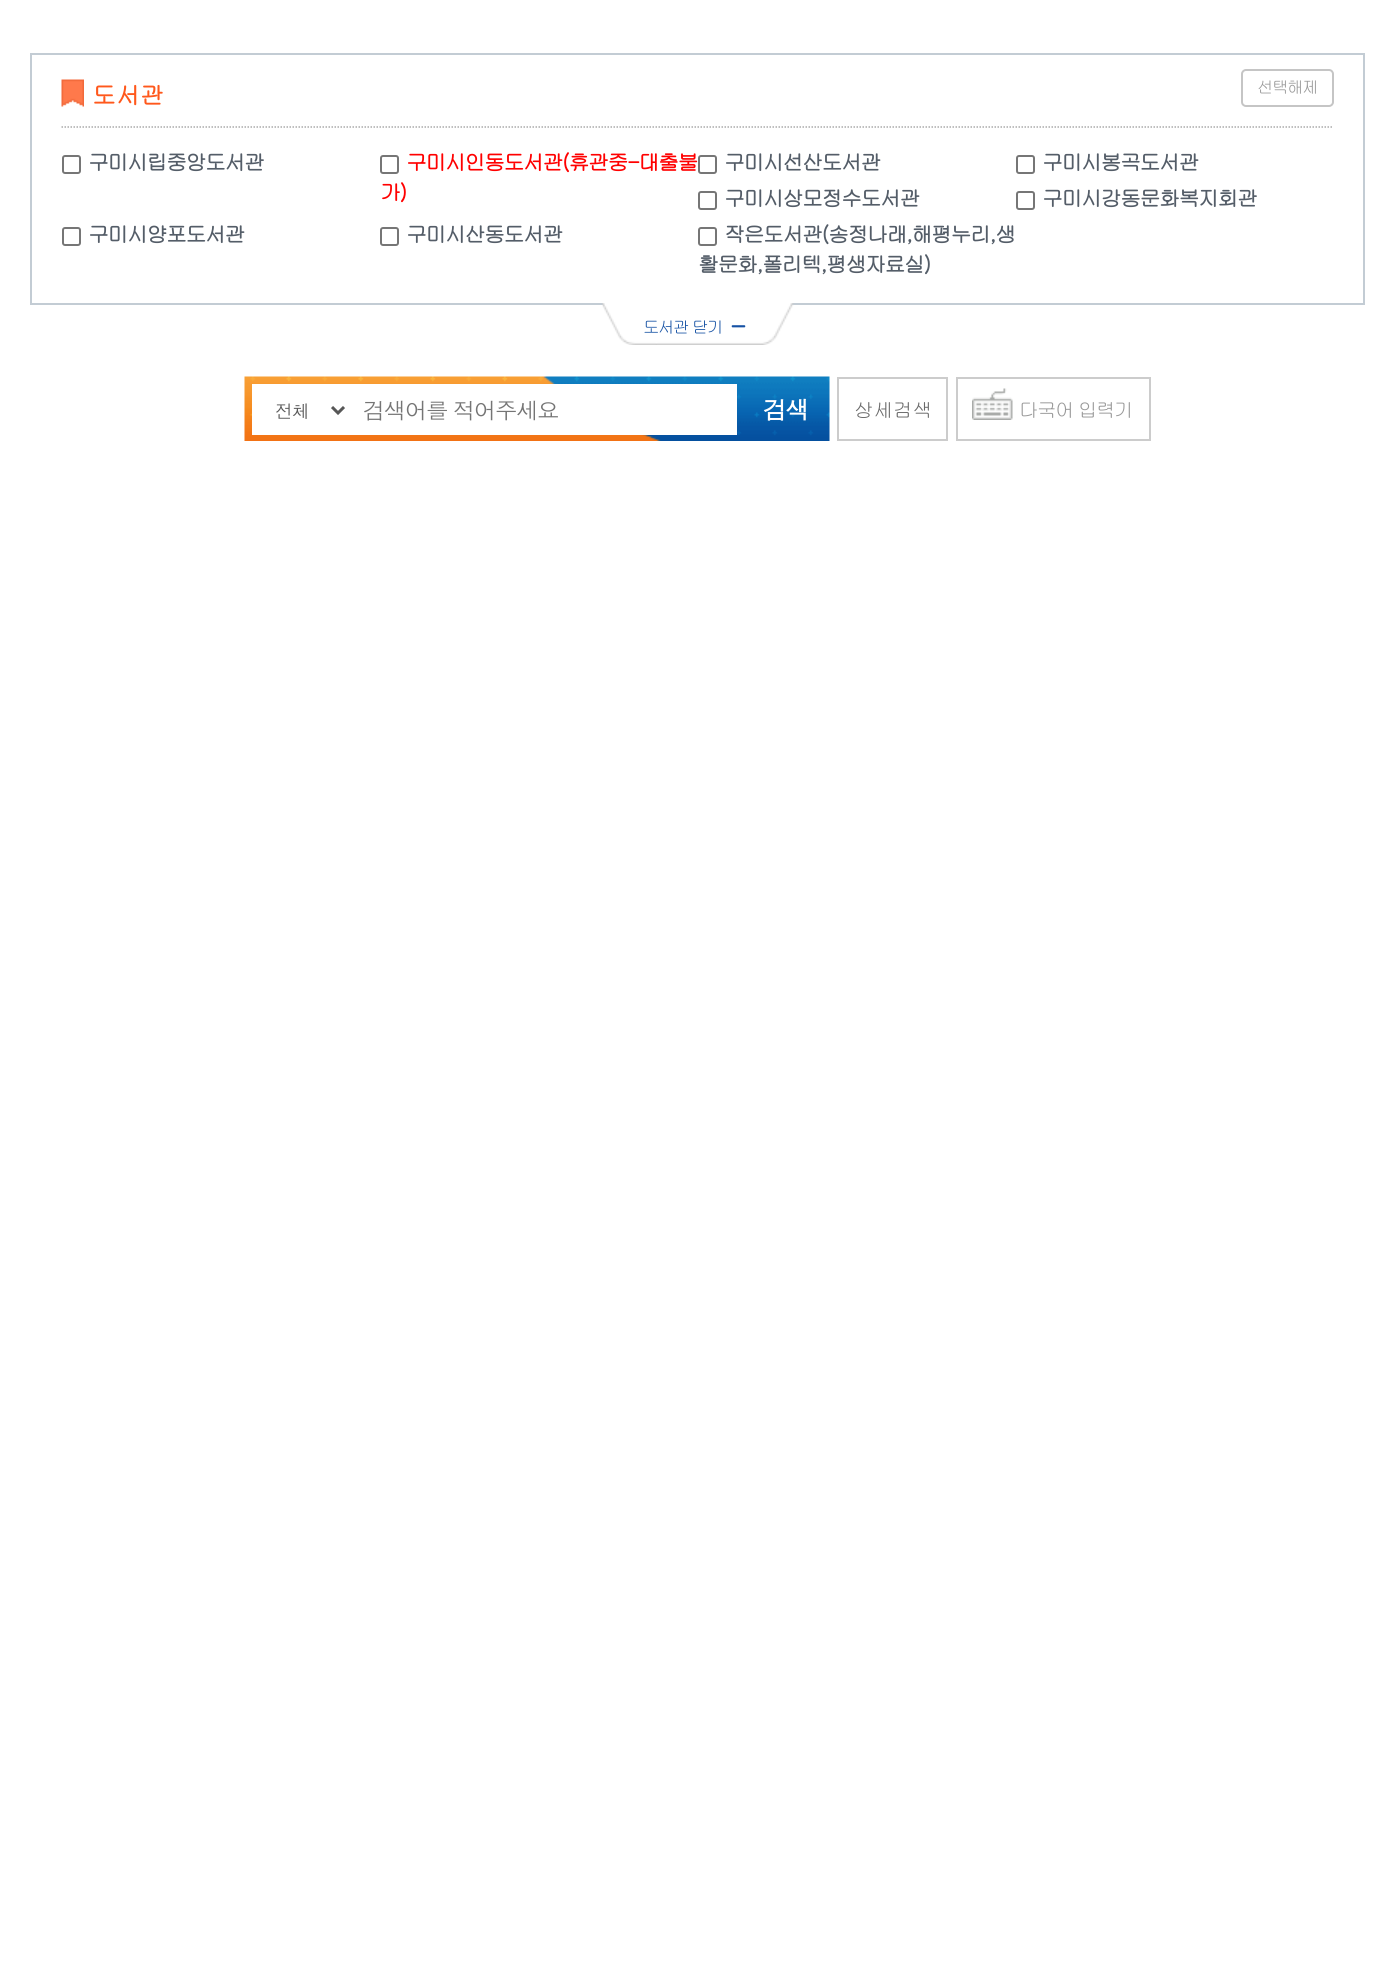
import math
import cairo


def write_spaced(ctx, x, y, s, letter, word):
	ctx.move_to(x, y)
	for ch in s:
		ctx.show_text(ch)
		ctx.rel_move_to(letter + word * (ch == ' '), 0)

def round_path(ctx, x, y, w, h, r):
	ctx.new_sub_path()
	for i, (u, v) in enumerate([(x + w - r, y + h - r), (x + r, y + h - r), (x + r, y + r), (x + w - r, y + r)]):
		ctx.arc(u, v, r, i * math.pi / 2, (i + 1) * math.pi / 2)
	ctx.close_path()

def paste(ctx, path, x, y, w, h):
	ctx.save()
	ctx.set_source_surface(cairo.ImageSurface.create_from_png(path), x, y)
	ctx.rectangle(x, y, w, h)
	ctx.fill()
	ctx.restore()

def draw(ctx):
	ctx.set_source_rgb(1, 1, 1)
	ctx.paint()
	ctx.rectangle(31, 54, 1333, 250)
	ctx.set_source_rgb(0.765, 0.8, 0.831)
	ctx.stroke()
	paste(ctx, 'media/1.png', 61, 79, 23, 28)
	ctx.new_path()
	ctx.move_to(61.5, 127)
	ctx.line_to(1333.5, 127)
	ctx.set_source_rgb(0.667, 0.667, 0.667)
	ctx.set_line_width(1.5)
	ctx.set_dash([1.5, 1.5])
	ctx.stroke()
	ctx.select_font_face('Gulim', cairo.FONT_SLANT_NORMAL, cairo.FONT_WEIGHT_BOLD)
	ctx.set_font_size(24)
	ctx.set_source_rgb(1, 0.345, 0.11)
	ctx.move_to(92, 104)
	ctx.show_text('도서관')
	round_path(ctx, 63, 156, 17, 17, 2)
	ctx.set_source_rgb(0.463, 0.463, 0.463)
	ctx.set_line_width(2)
	ctx.set_dash([])
	ctx.stroke()
	ctx.set_font_size(21)
	ctx.set_source_rgb(0.329, 0.365, 0.408)
	write_spaced(ctx, 88, 170, '구미시립중앙도서관', -1.5, 0)
	round_path(ctx, 381, 156, 17, 17, 2)
	ctx.set_source_rgb(0.463, 0.463, 0.463)
	ctx.stroke()
	ctx.set_source_rgb(1, 0, 0)
	write_spaced(ctx, 406, 170, '구미시인동도서관(휴관중-대출불', -1.5, 0)
	write_spaced(ctx, 380, 200, '가)', -1.5, 0)
	round_path(ctx, 699, 156, 17, 17, 2)
	ctx.set_source_rgb(0.463, 0.463, 0.463)
	ctx.stroke()
	ctx.set_source_rgb(0.329, 0.365, 0.408)
	write_spaced(ctx, 724, 170, '구미시선산도서관', -1.5, 0)
	round_path(ctx, 1017, 156, 17, 17, 2)
	ctx.set_source_rgb(0.463, 0.463, 0.463)
	ctx.stroke()
	ctx.set_source_rgb(0.329, 0.365, 0.408)
	write_spaced(ctx, 1042, 170, '구미시봉곡도서관', -1.5, 0)
	round_path(ctx, 699, 192, 17, 17, 2)
	ctx.set_source_rgb(0.463, 0.463, 0.463)
	ctx.stroke()
	ctx.set_source_rgb(0.329, 0.365, 0.408)
	write_spaced(ctx, 724, 206, '구미시상모정수도서관', -1.5, 0)
	round_path(ctx, 1017, 192, 17, 17, 2)
	ctx.set_source_rgb(0.463, 0.463, 0.463)
	ctx.stroke()
	ctx.set_source_rgb(0.329, 0.365, 0.408)
	write_spaced(ctx, 1042, 206, '구미시강동문화복지회관', -1.5, 0)
	round_path(ctx, 63, 228, 17, 17, 2)
	ctx.set_source_rgb(0.463, 0.463, 0.463)
	ctx.stroke()
	ctx.set_source_rgb(0.329, 0.365, 0.408)
	write_spaced(ctx, 88, 242, '구미시양포도서관', -1.5, 0)
	round_path(ctx, 381, 228, 17, 17, 2)
	ctx.set_source_rgb(0.463, 0.463, 0.463)
	ctx.stroke()
	ctx.set_source_rgb(0.329, 0.365, 0.408)
	write_spaced(ctx, 406, 242, '구미시산동도서관', -1.5, 0)
	round_path(ctx, 699, 228, 17, 17, 2)
	ctx.set_source_rgb(0.463, 0.463, 0.463)
	ctx.stroke()
	ctx.set_source_rgb(0.329, 0.365, 0.408)
	write_spaced(ctx, 724, 242, '작은도서관(송정나래,해평누리,생', -1.5, 0)
	write_spaced(ctx, 698, 272, '활문화,폴리텍,평생자료실)', -1.5, 0)
	round_path(ctx, 1242, 70, 91, 36, 4)
	ctx.set_source_rgb(0.773, 0.773, 0.773)
	ctx.stroke()
	ctx.select_font_face('Gulim')
	ctx.set_font_size(16.5)
	ctx.set_source_rgb(0.6, 0.6, 0.6)
	write_spaced(ctx, 1257, 93, '선택해제', -1.5, 0)
	paste(ctx, 'media/2.png', 602, 303, 192, 42)
	ctx.set_source_rgb(0.086, 0.322, 0.643)
	write_spaced(ctx, 643, 333, '도서관 닫기', -1.5, 0)
	ctx.select_font_face('Gulim', cairo.FONT_SLANT_NORMAL, cairo.FONT_WEIGHT_BOLD)
	ctx.set_font_size(26)
	write_spaced(ctx, 730, 336, '-', -1.5, 0)
	paste(ctx, 'media/3.png', 244, 376, 586, 65)
	ctx.set_source_rgb(1, 1, 1)
	ctx.rectangle(252, 384, 485, 51)
	ctx.fill()
	ctx.new_path()
	ctx.move_to(332, 407)
	ctx.line_to(338, 413)
	ctx.line_to(344, 407)
	ctx.set_source_rgb(0.341, 0.341, 0.341)
	ctx.set_line_width(3)
	ctx.stroke()
	ctx.select_font_face('Dotum')
	ctx.set_font_size(18)
	write_spaced(ctx, 275, 418, '전체', -1, 0)
	ctx.set_font_size(22.5)
	ctx.set_source_rgb(0.459, 0.459, 0.459)
	write_spaced(ctx, 363, 419, '검색어를 적어주세요', -1.5, 0)
	ctx.select_font_face('Dotum', cairo.FONT_SLANT_NORMAL, cairo.FONT_WEIGHT_BOLD)
	ctx.set_font_size(24)
	ctx.set_source_rgb(1, 1, 1)
	write_spaced(ctx, 763, 419, '검색', -1.5, 0)
	ctx.rectangle(838, 378, 109, 62)
	ctx.set_source_rgb(0.8, 0.8, 0.8)
	ctx.set_line_width(2)
	ctx.stroke()
	ctx.select_font_face('Gulim')
	ctx.set_font_size(19.5)
	ctx.set_source_rgb(0.412, 0.412, 0.412)
	ctx.move_to(854, 417)
	ctx.show_text('상세검색')
	paste(ctx, 'media/4.png', 972, 388, 41, 32)
	ctx.rectangle(957, 378, 193, 62)
	ctx.set_source_rgb(0.8, 0.8, 0.8)
	ctx.stroke()
	ctx.set_source_rgb(0.6, 0.6, 0.6)
	write_spaced(ctx, 1019, 417, '다국어 입력기', -1.5, 0)


surface = cairo.ImageSurface(cairo.FORMAT_RGB24, 1394, 1961)
ctx = cairo.Context(surface)
options = cairo.FontOptions()
options.set_hint_metrics(cairo.HINT_METRICS_OFF)
options.set_hint_style(cairo.HINT_STYLE_NONE)
ctx.set_font_options(options)
ctx.set_miter_limit(4)
draw(ctx)
surface.write_to_png('image.png')
